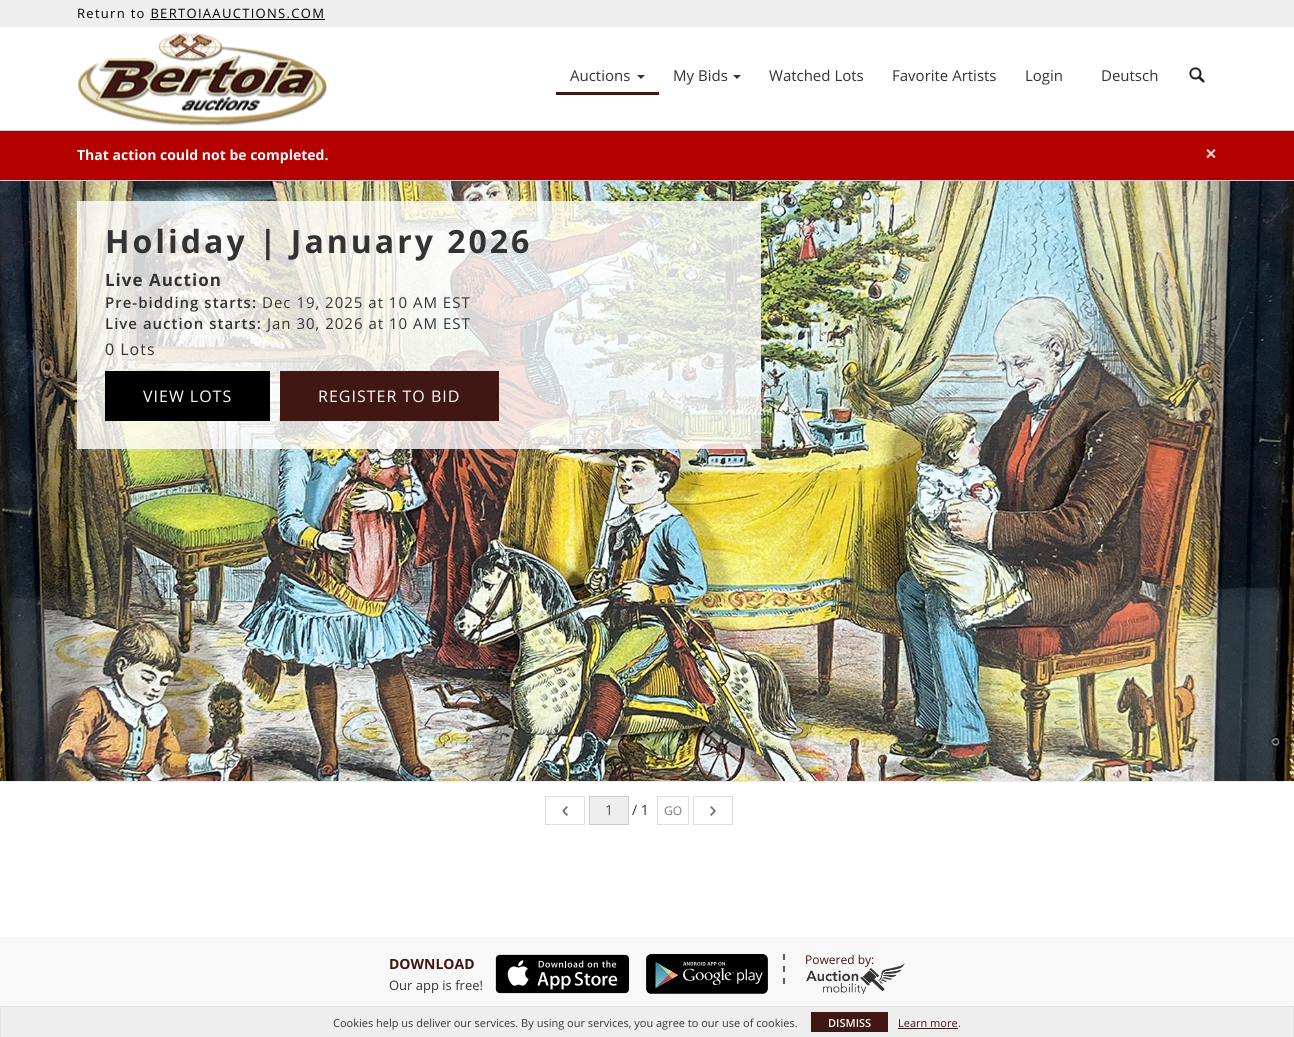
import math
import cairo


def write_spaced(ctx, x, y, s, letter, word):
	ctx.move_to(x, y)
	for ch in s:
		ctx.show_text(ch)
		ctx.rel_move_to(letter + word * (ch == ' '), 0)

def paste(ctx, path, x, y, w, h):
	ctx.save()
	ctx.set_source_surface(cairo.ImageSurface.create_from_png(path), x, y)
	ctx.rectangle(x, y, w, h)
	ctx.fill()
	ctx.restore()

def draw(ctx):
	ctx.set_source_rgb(1, 1, 1)
	ctx.paint()
	ctx.set_source_rgb(0.933, 0.933, 0.933)
	ctx.rectangle(0, 0, 1294, 27)
	ctx.fill()
	ctx.select_font_face('Open Sans')
	ctx.set_font_size(13)
	ctx.set_source_rgb(0, 0, 0)
	write_spaced(ctx, 77, 18, 'Return to BERTOIAAUCTIONS.COM', 1.3, 0)
	ctx.rectangle(150, 19, 175, 1)
	ctx.fill()
	paste(ctx, 'media/1.png', 77, 33, 250, 93)
	ctx.set_source_rgb(0.251, 0.09, 0.075)
	ctx.rectangle(556, 92, 103, 3)
	ctx.fill()
	ctx.set_font_size(15)
	ctx.set_source_rgb(0.2, 0.2, 0.2)
	ctx.move_to(570, 81)
	ctx.show_text('Auctions')
	ctx.new_path()
	ctx.move_to(637, 75)
	ctx.line_to(645, 75)
	ctx.line_to(641, 79)
	ctx.close_path()
	ctx.fill()
	ctx.move_to(673, 81)
	ctx.show_text('My Bids')
	ctx.new_path()
	ctx.move_to(733, 75)
	ctx.line_to(741, 75)
	ctx.line_to(737, 79)
	ctx.close_path()
	ctx.fill()
	for x, y, s in [
		(769, 81, 'Watched Lots'),
		(892, 81, 'Favorite Artists'),
		(1025, 81, 'Login'),
		(1101, 81, 'Deutsch'),
	]:
		ctx.move_to(x, y)
		ctx.show_text(s)
	paste(ctx, 'media/2.png', 1189, 67, 16, 16)
	ctx.set_source_rgb(0.8, 0.8, 0.8)
	ctx.rectangle(0, 130, 1294, 1)
	ctx.fill()
	ctx.set_source_rgb(0.71, 0, 0)
	ctx.rectangle(0, 131, 1294, 49)
	ctx.fill()
	ctx.set_source_rgb(0.922, 0.8, 0.82)
	ctx.rectangle(0, 180, 1294, 1)
	ctx.fill()
	ctx.select_font_face('Open Sans', cairo.FONT_SLANT_NORMAL, cairo.FONT_WEIGHT_BOLD)
	ctx.set_font_size(14)
	ctx.set_source_rgb(1, 1, 1)
	ctx.move_to(77, 160)
	ctx.show_text('That action could not be completed.')
	ctx.set_font_size(21)
	ctx.set_source_rgb(0.941, 0.8, 0.8)
	ctx.move_to(1205, 161)
	ctx.show_text('×')
	paste(ctx, 'media/3.png', 0, 181, 1294, 600)
	ctx.set_source_rgba(1, 1, 1, 0.8)
	ctx.rectangle(77, 201, 684, 248)
	ctx.fill()
	ctx.set_font_size(32)
	ctx.set_source_rgb(0.2, 0.2, 0.2)
	write_spaced(ctx, 105, 253, 'Holiday | January 2026', 3, 0)
	ctx.set_font_size(17)
	write_spaced(ctx, 105, 286, 'Live Auction', 1, 0)
	ctx.select_font_face('Open Sans SemiBold')
	ctx.set_font_size(15)
	write_spaced(ctx, 105, 308, 'Pre-bidding starts:', 1, 0)
	ctx.select_font_face('Open Sans')
	write_spaced(ctx, 262, 308, 'Dec 19, 2025 at 10 AM EST', 1, 0)
	ctx.select_font_face('Open Sans SemiBold')
	write_spaced(ctx, 105, 329, 'Live auction starts:', 1, 0)
	ctx.select_font_face('Open Sans')
	write_spaced(ctx, 267, 329, 'Jan 30, 2026 at 10 AM EST', 1, 0)
	ctx.set_font_size(16)
	write_spaced(ctx, 105, 355, '0 Lots', 1, 0)
	ctx.set_source_rgb(0, 0, 0)
	ctx.rectangle(105, 371, 165, 50)
	ctx.fill()
	ctx.set_source_rgb(1, 1, 1)
	write_spaced(ctx, 143, 402, 'VIEW LOTS', 1, 0)
	ctx.set_source_rgb(0.251, 0.09, 0.075)
	ctx.rectangle(280, 371, 219, 50)
	ctx.fill()
	ctx.set_source_rgb(1, 1, 1)
	write_spaced(ctx, 318, 402, 'REGISTER TO BID', 1, 0)
	ctx.set_source_rgb(0.922, 0.922, 0.922)
	ctx.rectangle(0, 781, 1294, 1)
	ctx.fill()
	ctx.rectangle(545.5, 796.5, 39, 28)
	ctx.set_source_rgb(0.871, 0.871, 0.871)
	ctx.set_line_width(1)
	ctx.stroke()
	paste(ctx, 'media/4.png', 562, 806, 6, 10)
	ctx.set_source_rgb(0.933, 0.933, 0.933)
	ctx.rectangle(589.5, 796.5, 39, 28)
	ctx.fill_preserve()
	ctx.set_source_rgb(0.8, 0.8, 0.8)
	ctx.stroke()
	ctx.set_font_size(14)
	ctx.set_source_rgb(0.333, 0.333, 0.333)
	ctx.move_to(605, 815)
	ctx.show_text('1')
	ctx.set_source_rgb(0.2, 0.2, 0.2)
	ctx.move_to(632, 815)
	ctx.show_text('/ 1')
	ctx.rectangle(657.5, 796.5, 31, 28)
	ctx.set_source_rgb(0.871, 0.871, 0.871)
	ctx.stroke()
	ctx.set_font_size(12)
	ctx.set_source_rgb(0.478, 0.478, 0.478)
	ctx.move_to(664, 815)
	ctx.show_text('GO')
	ctx.rectangle(693.5, 796.5, 39, 28)
	ctx.set_source_rgb(0.871, 0.871, 0.871)
	ctx.stroke()
	paste(ctx, 'media/5.png', 710, 806, 6, 10)
	ctx.set_source_rgb(0.969, 0.969, 0.969)
	ctx.rectangle(0, 937, 1294, 69)
	ctx.fill()
	ctx.select_font_face('Open Sans', cairo.FONT_SLANT_NORMAL, cairo.FONT_WEIGHT_BOLD)
	ctx.set_font_size(14)
	ctx.set_source_rgb(0.251, 0.09, 0.075)
	ctx.move_to(389, 969)
	ctx.show_text('DOWNLOAD')
	ctx.select_font_face('Open Sans')
	ctx.set_font_size(13)
	ctx.set_source_rgb(0.2, 0.2, 0.2)
	ctx.move_to(389, 990)
	ctx.show_text('Our app is free!')
	paste(ctx, 'media/6.png', 495, 954, 135, 40)
	paste(ctx, 'media/7.png', 646, 954, 122, 40)
	ctx.new_path()
	ctx.move_to(784, 954)
	ctx.line_to(784, 960)
	ctx.move_to(784, 966)
	ctx.line_to(784, 972)
	ctx.move_to(784, 978)
	ctx.line_to(784, 984)
	ctx.set_source_rgb(0.349, 0.349, 0.349)
	ctx.set_line_width(2)
	ctx.stroke()
	ctx.set_font_size(12)
	ctx.set_source_rgb(0.251, 0.09, 0.075)
	ctx.move_to(805, 964)
	ctx.show_text('Powered by:')
	paste(ctx, 'media/8.png', 806, 963, 99, 31)
	ctx.set_source_rgb(0.933, 0.933, 0.933)
	ctx.rectangle(1, 1007, 1292, 30)
	ctx.fill()
	ctx.set_source_rgb(0.894, 0.894, 0.894)
	ctx.rectangle(0, 1006, 1294, 1)
	ctx.rectangle(1293, 1006, 1, 31)
	ctx.rectangle(0, 1006, 1, 31)
	ctx.fill()
	ctx.set_font_size(11)
	ctx.set_source_rgb(0.2, 0.2, 0.2)
	ctx.move_to(333, 1027)
	ctx.show_text('Cookies help us deliver our services. By using our services, you agree to our use of cookies.')
	ctx.set_source_rgb(0.251, 0.09, 0.075)
	ctx.rectangle(811, 1012, 77, 20)
	ctx.fill()
	ctx.select_font_face('Open Sans SemiBold')
	ctx.set_source_rgb(1, 1, 1)
	ctx.move_to(828, 1027)
	ctx.show_text('DISMISS')
	ctx.select_font_face('Open Sans')
	ctx.set_source_rgb(0.251, 0.09, 0.075)
	ctx.move_to(898, 1027)
	ctx.show_text('Learn more')
	ctx.rectangle(898, 1028, 60, 1)
	ctx.fill()
	ctx.set_source_rgb(0.2, 0.2, 0.2)
	ctx.move_to(958, 1027)
	ctx.show_text('.')


surface = cairo.ImageSurface(cairo.FORMAT_RGB24, 1294, 1037)
ctx = cairo.Context(surface)
options = cairo.FontOptions()
options.set_hint_metrics(cairo.HINT_METRICS_OFF)
options.set_hint_style(cairo.HINT_STYLE_NONE)
ctx.set_font_options(options)
ctx.set_miter_limit(4)
draw(ctx)
surface.write_to_png('image.png')
